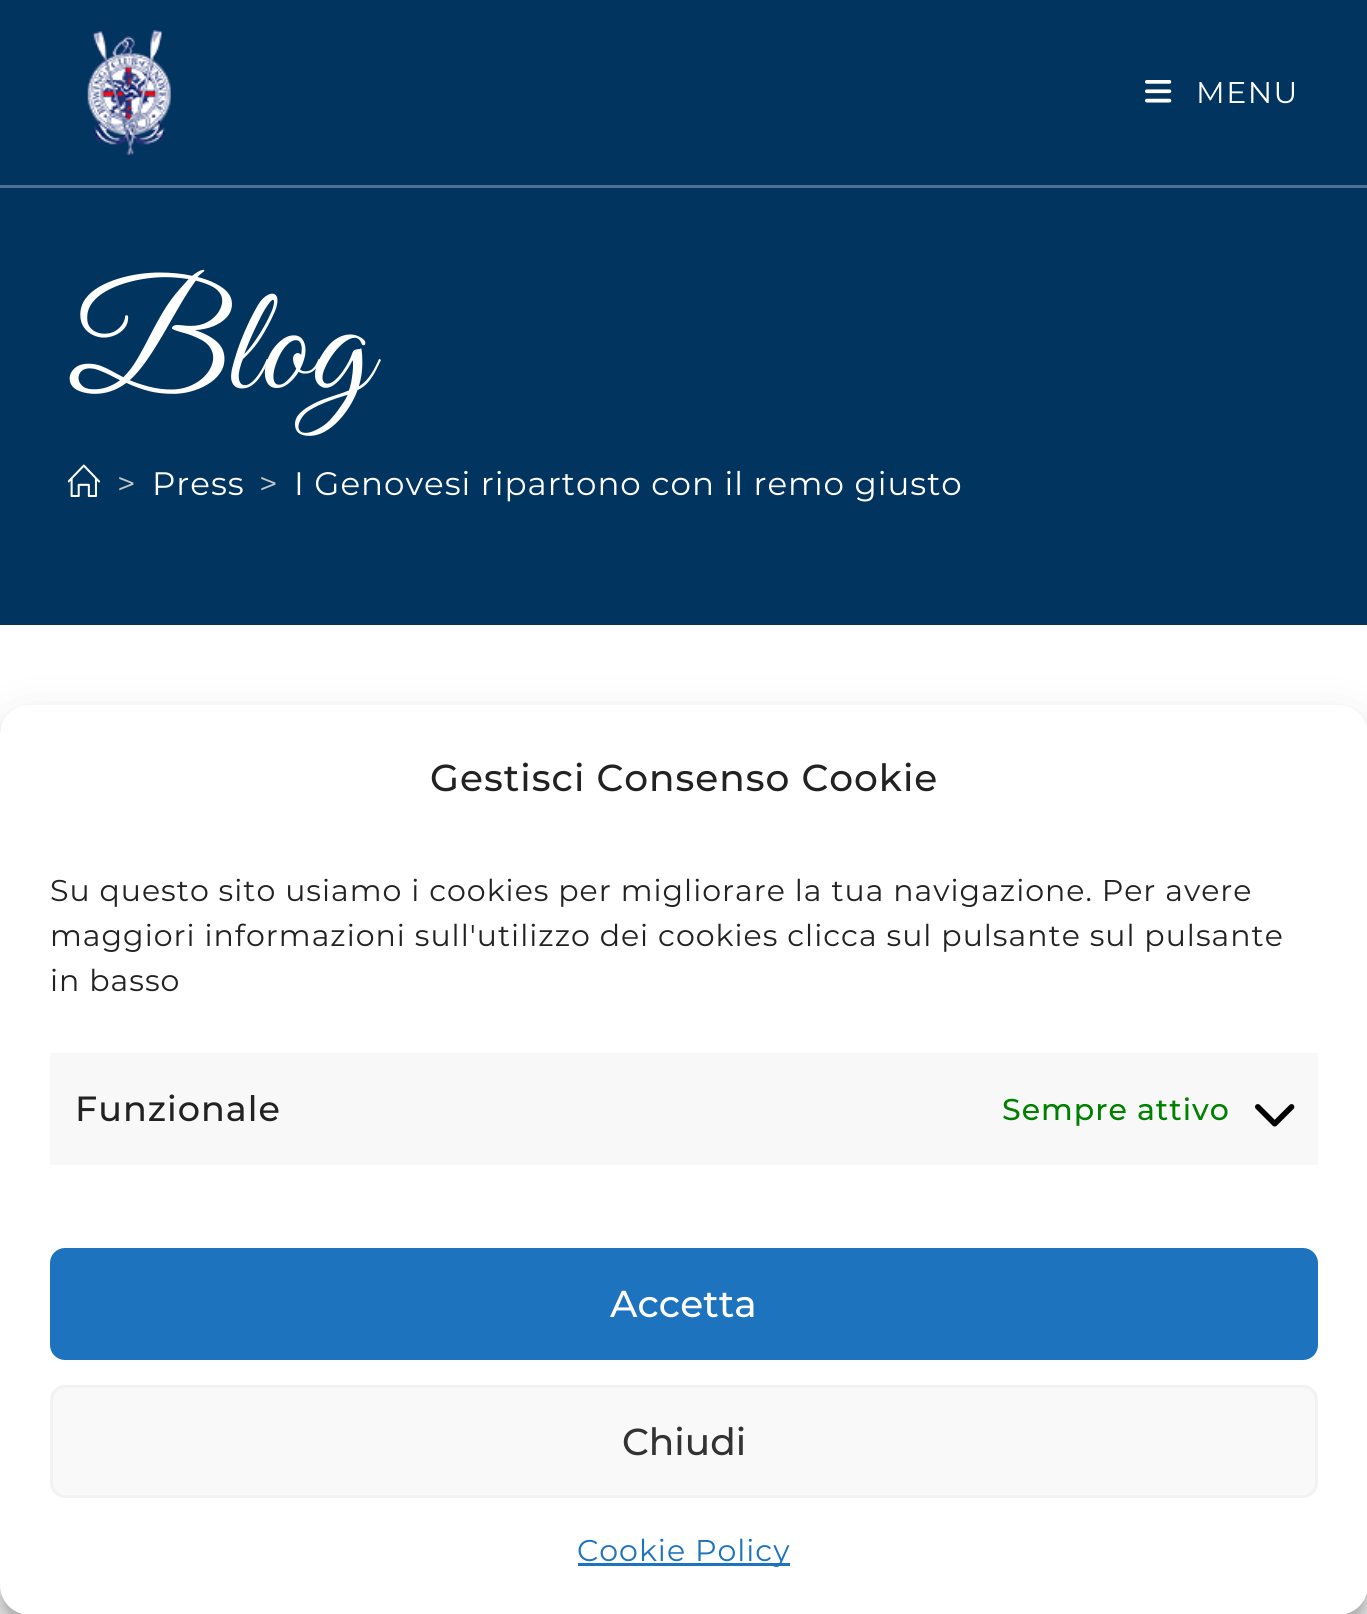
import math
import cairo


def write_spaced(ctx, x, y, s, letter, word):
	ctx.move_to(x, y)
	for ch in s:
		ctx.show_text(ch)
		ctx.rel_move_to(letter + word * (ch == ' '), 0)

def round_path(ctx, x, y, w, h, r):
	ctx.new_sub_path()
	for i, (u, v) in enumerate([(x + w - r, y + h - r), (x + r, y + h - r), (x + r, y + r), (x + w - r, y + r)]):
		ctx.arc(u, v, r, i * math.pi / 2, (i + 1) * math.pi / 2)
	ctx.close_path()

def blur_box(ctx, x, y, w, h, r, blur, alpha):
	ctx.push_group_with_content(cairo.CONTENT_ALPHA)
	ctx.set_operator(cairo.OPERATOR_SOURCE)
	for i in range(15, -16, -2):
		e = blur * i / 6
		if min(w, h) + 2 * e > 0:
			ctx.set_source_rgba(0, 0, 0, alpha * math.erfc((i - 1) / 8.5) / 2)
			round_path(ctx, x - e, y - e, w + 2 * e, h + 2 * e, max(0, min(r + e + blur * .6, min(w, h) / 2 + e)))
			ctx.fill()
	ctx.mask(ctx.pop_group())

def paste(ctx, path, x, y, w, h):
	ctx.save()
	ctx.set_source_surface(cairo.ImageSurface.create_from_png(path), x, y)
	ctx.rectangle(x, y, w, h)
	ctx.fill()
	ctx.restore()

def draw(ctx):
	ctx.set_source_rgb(1, 1, 1)
	ctx.paint()
	ctx.set_source_rgb(0.004, 0.204, 0.369)
	ctx.rectangle(0, 0, 1367, 625)
	ctx.fill()
	ctx.set_source_rgb(0.302, 0.443, 0.557)
	ctx.rectangle(0, 185, 1367, 3)
	ctx.fill()
	paste(ctx, 'media/1.png', 87, 30, 84, 125)
	paste(ctx, 'media/2.png', 1145, 80, 27, 23)
	ctx.select_font_face('Montserrat')
	ctx.set_font_size(30)
	ctx.set_source_rgb(1, 1, 1)
	write_spaced(ctx, 1196, 103, 'MENU', 1.5, 0)
	ctx.select_font_face('Great Vibes')
	ctx.set_font_size(150)
	write_spaced(ctx, 68, 388, 'Blog', 1, 0)
	paste(ctx, 'media/3.png', 68, 464, 33, 33)
	ctx.select_font_face('Montserrat')
	ctx.set_font_size(32.5)
	ctx.set_source_rgb(0.776, 0.776, 0.776)
	write_spaced(ctx, 117, 495, '>', 1, 0)
	ctx.set_source_rgb(1, 1, 1)
	write_spaced(ctx, 152, 495, 'Press', 1, 0)
	ctx.set_source_rgb(0.776, 0.776, 0.776)
	write_spaced(ctx, 259, 495, '>', 1, 0)
	ctx.set_source_rgb(1, 1, 1)
	write_spaced(ctx, 294, 495, 'I Genovesi ripartono con il remo giusto', 1, 0)
	ctx.set_source_rgb(0, 0, 0)
	blur_box(ctx, 0, 720, 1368, 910, 30, 7.5, 0.23)
	blur_box(ctx, 0, 730, 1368, 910, 30, 25, 0.19)
	ctx.set_source_rgb(1, 1, 1)
	round_path(ctx, 0, 705, 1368, 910, 30)
	ctx.fill()
	ctx.select_font_face('Montserrat Medium')
	ctx.set_font_size(37.5)
	ctx.set_source_rgb(0.133, 0.133, 0.133)
	write_spaced(ctx, 430, 791, 'Gestisci Consenso Cookie', 1, 0)
	ctx.select_font_face('Montserrat')
	ctx.set_font_size(30)
	for x, y, s in [
		(50, 901, 'Su questo sito usiamo i cookies per migliorare la tua navigazione. Per avere'),
		(50, 946, 'maggiori informazioni sull\'utilizzo dei cookies clicca sul pulsante sul pulsante'),
		(50, 991, 'in basso'),
	]:
		write_spaced(ctx, x, y, s, 1, 0)
	ctx.set_source_rgb(0.969, 0.969, 0.969)
	ctx.rectangle(50, 1053, 1268, 112)
	ctx.fill()
	ctx.select_font_face('Montserrat Medium')
	ctx.set_font_size(35)
	ctx.set_source_rgb(0.133, 0.133, 0.133)
	write_spaced(ctx, 75, 1121, 'Funzionale', 1, 0)
	ctx.set_font_size(30)
	ctx.set_source_rgb(0, 0.502, 0)
	write_spaced(ctx, 1002, 1120, 'Sempre attivo', 1, 0)
	paste(ctx, 'media/4.png', 1255, 1104, 40, 23)
	ctx.set_source_rgb(0.118, 0.451, 0.745)
	round_path(ctx, 51.5, 1249.5, 1265, 109, 13.5)
	ctx.fill_preserve()
	ctx.set_line_width(3)
	ctx.stroke()
	ctx.set_font_size(37.5)
	ctx.set_source_rgb(1, 1, 1)
	ctx.move_to(610, 1317)
	ctx.show_text('Accetta')
	ctx.set_source_rgb(0.976, 0.976, 0.976)
	round_path(ctx, 51.5, 1386.5, 1265, 110, 13.5)
	ctx.fill_preserve()
	ctx.set_source_rgb(0.949, 0.949, 0.949)
	ctx.stroke()
	ctx.set_source_rgb(0.2, 0.2, 0.2)
	ctx.move_to(622, 1455)
	ctx.show_text('Chiudi')
	ctx.set_source_rgb(0.118, 0.451, 0.745)
	ctx.rectangle(578, 1563, 212, 3)
	ctx.fill()
	ctx.select_font_face('Montserrat')
	ctx.set_font_size(30)
	write_spaced(ctx, 577, 1561, 'Cookie Policy', 1, 0)


surface = cairo.ImageSurface(cairo.FORMAT_RGB24, 1367, 1614)
ctx = cairo.Context(surface)
options = cairo.FontOptions()
options.set_hint_metrics(cairo.HINT_METRICS_OFF)
options.set_hint_style(cairo.HINT_STYLE_NONE)
ctx.set_font_options(options)
ctx.set_miter_limit(4)
draw(ctx)
surface.write_to_png('image.png')
